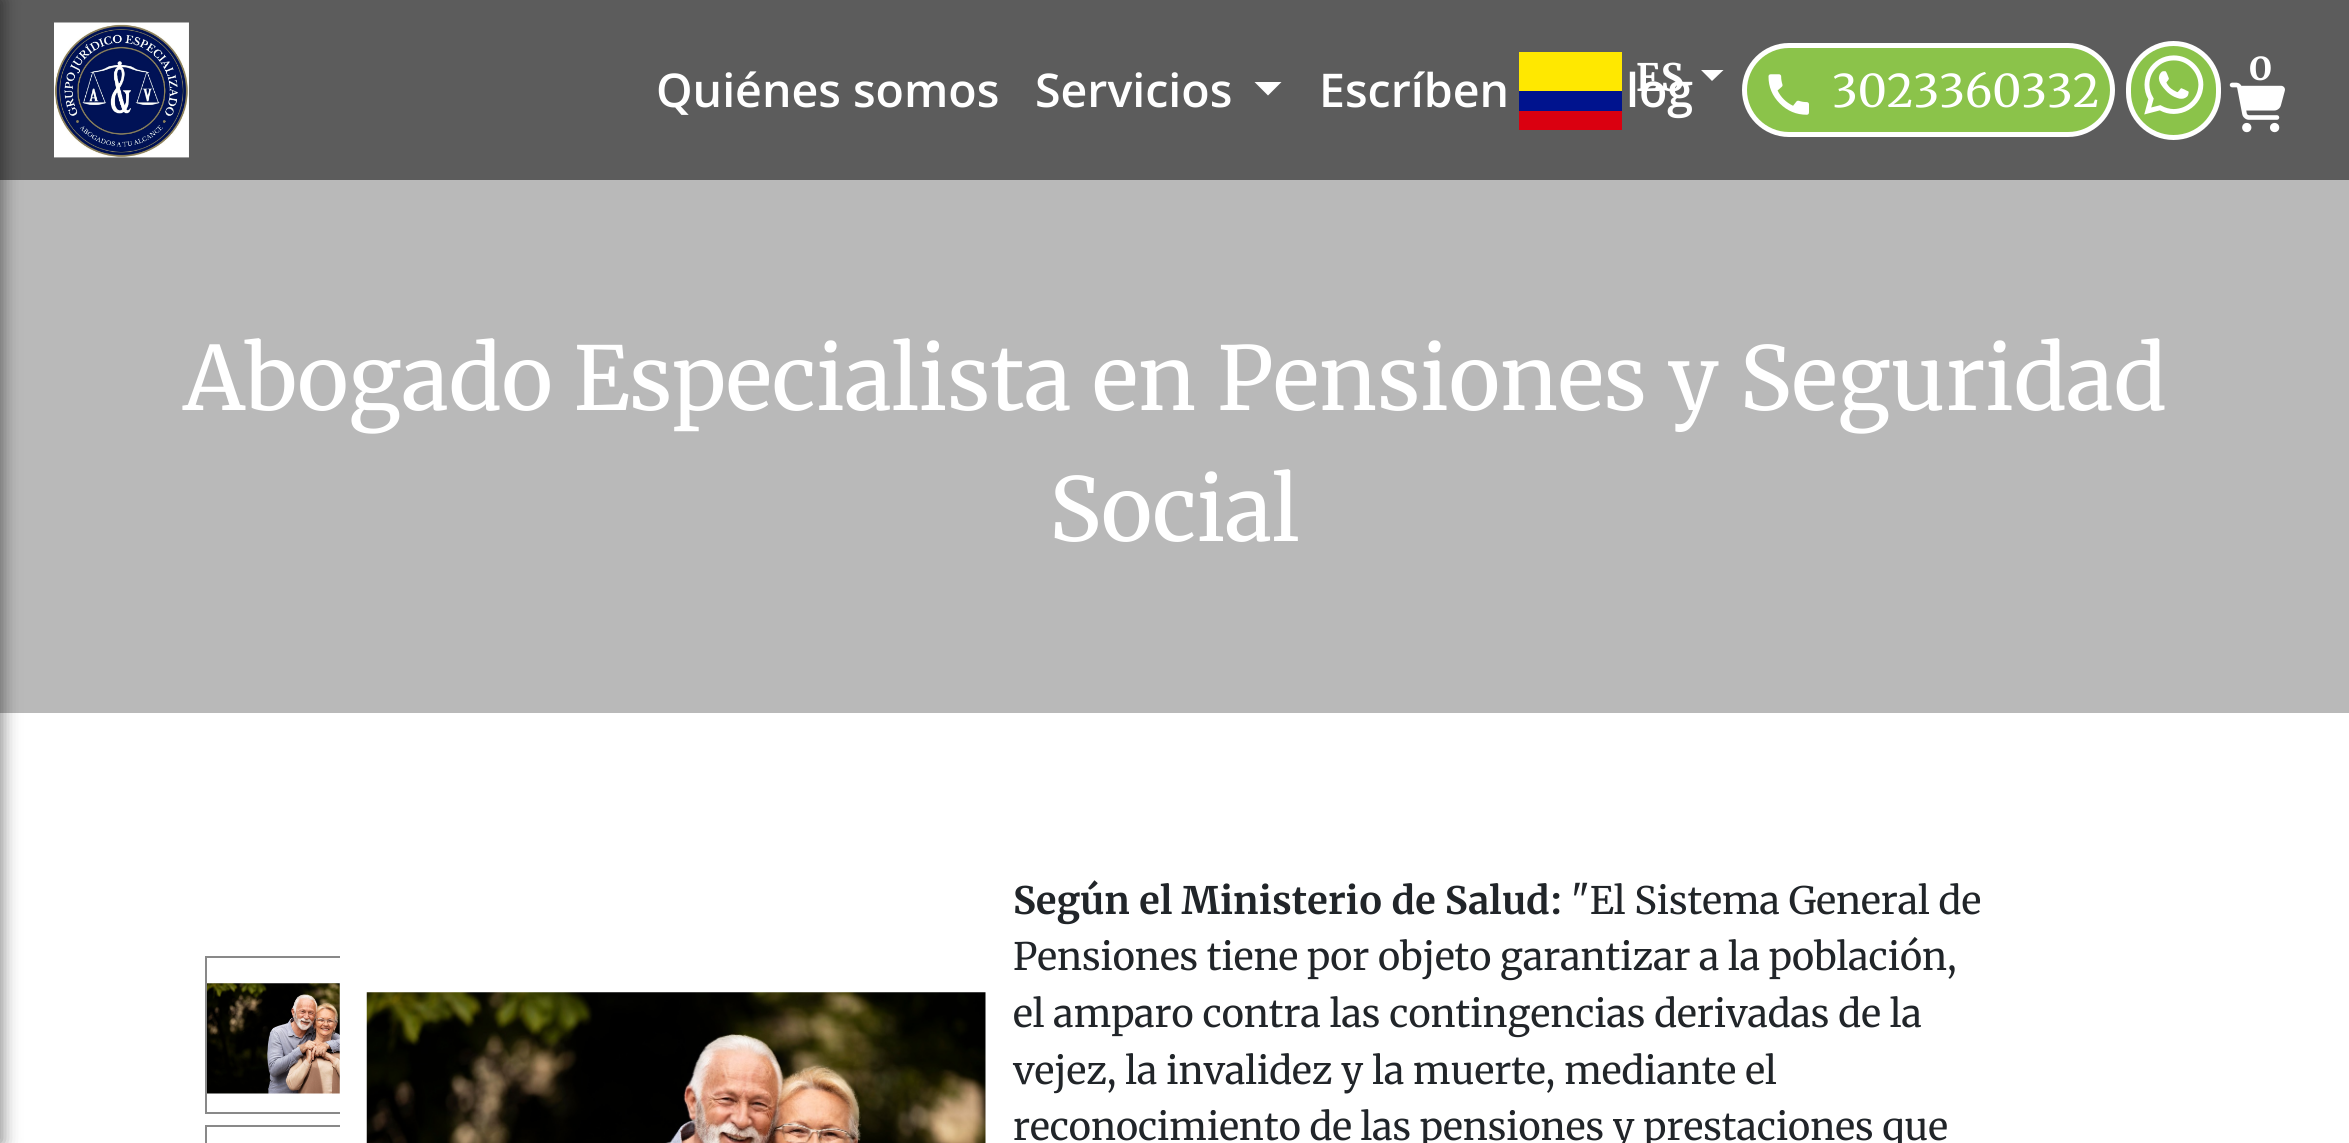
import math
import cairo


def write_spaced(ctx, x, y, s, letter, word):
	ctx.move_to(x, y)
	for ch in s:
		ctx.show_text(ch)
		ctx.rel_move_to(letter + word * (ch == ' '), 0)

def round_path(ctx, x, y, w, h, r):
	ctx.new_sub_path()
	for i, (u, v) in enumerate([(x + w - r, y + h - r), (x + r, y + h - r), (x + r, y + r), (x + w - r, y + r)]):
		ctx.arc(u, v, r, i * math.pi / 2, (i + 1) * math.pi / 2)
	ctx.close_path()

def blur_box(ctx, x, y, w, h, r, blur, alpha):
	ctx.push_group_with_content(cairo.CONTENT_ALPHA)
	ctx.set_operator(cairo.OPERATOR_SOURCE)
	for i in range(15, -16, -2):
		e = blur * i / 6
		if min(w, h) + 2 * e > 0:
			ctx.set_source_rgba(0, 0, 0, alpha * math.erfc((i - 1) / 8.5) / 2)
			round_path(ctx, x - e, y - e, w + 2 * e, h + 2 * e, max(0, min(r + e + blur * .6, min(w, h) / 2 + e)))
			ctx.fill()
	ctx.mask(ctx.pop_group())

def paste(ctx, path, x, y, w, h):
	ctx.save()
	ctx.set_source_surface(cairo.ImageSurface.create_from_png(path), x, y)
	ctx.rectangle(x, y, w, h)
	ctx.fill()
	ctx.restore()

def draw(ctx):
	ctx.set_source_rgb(1, 1, 1)
	ctx.paint()
	ctx.set_source_rgb(0.361, 0.361, 0.361)
	ctx.rectangle(0, 0, 2349, 180)
	ctx.fill()
	ctx.set_source_rgb(0.725, 0.725, 0.725)
	ctx.rectangle(0, 180, 2349, 533)
	ctx.fill()
	ctx.set_source_rgb(0, 0, 0)
	blur_box(ctx, -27, 0, 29, 1143, 0, 9, 0.5)
	paste(ctx, 'media/1.png', 54, 22, 135, 136)
	ctx.select_font_face('Open Sans SemiBold')
	ctx.set_font_size(46.5)
	ctx.set_source_rgb(1, 1, 1)
	ctx.move_to(656, 107)
	ctx.show_text('Quiénes somos')
	ctx.move_to(1035, 107)
	ctx.show_text('Servicios')
	ctx.new_path()
	ctx.move_to(1254.5, 82)
	ctx.line_to(1281.5, 82)
	ctx.line_to(1268, 95.5)
	ctx.close_path()
	ctx.fill()
	ctx.move_to(1319, 107)
	ctx.show_text('Escríben')
	ctx.move_to(1626, 107)
	ctx.show_text('log')
	ctx.set_source_rgb(1, 0.91, 0)
	ctx.rectangle(1519, 52, 103, 39)
	ctx.fill()
	ctx.set_source_rgb(0, 0.078, 0.557)
	ctx.rectangle(1519, 91, 103, 20)
	ctx.fill()
	ctx.set_source_rgb(0.855, 0, 0.063)
	ctx.rectangle(1519, 111, 103, 19)
	ctx.fill()
	ctx.select_font_face('Merriweather', cairo.FONT_SLANT_NORMAL, cairo.FONT_WEIGHT_BOLD)
	ctx.set_font_size(37.8)
	ctx.set_source_rgb(1, 1, 1)
	ctx.move_to(1636, 91)
	ctx.show_text('ES')
	ctx.new_path()
	ctx.move_to(1701, 70)
	ctx.line_to(1723.5, 70)
	ctx.line_to(1712, 81)
	ctx.close_path()
	ctx.fill()
	ctx.set_source_rgb(0.545, 0.765, 0.29)
	round_path(ctx, 1744.5, 45.5, 368, 89, 44.5)
	ctx.fill_preserve()
	ctx.set_source_rgb(1, 1, 1)
	ctx.set_line_width(5)
	ctx.stroke()
	paste(ctx, 'media/2.png', 1768, 74, 41, 41)
	ctx.select_font_face('Merriweather Light')
	ctx.set_font_size(45)
	ctx.move_to(1832, 107)
	ctx.show_text('3023360332')
	ctx.set_source_rgb(0.545, 0.765, 0.29)
	round_path(ctx, 2128.5, 43.5, 90, 94, 45)
	ctx.fill_preserve()
	ctx.set_source_rgb(1, 1, 1)
	ctx.stroke()
	paste(ctx, 'media/3.png', 2144, 55, 60, 60)
	ctx.select_font_face('Merriweather', cairo.FONT_SLANT_NORMAL, cairo.FONT_WEIGHT_BOLD)
	ctx.set_font_size(37.8)
	ctx.move_to(2248, 80)
	ctx.show_text('0')
	paste(ctx, 'media/4.png', 2229, 82, 56, 51)
	ctx.select_font_face('Merriweather Light')
	ctx.set_font_size(87.75)
	ctx.move_to(183, 410)
	ctx.show_text('Abogado Especialista en Pensiones y Seguridad')
	ctx.move_to(1049, 541)
	ctx.show_text('Social')
	ctx.save()
	ctx.rectangle(205, 945, 135, 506)
	ctx.clip()
	ctx.rectangle(206, 957, 167, 156)
	ctx.set_source_rgb(0.537, 0.537, 0.537)
	ctx.set_line_width(2)
	ctx.stroke()
	ctx.restore()
	paste(ctx, 'media/5.png', 207, 983, 133, 111)
	ctx.save()
	ctx.rectangle(205, 945, 135, 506)
	ctx.clip()
	ctx.rectangle(206, 1126, 167, 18)
	ctx.set_source_rgb(0.537, 0.537, 0.537)
	ctx.set_line_width(2)
	ctx.stroke()
	ctx.restore()
	paste(ctx, 'media/6.png', 366, 992, 620, 151)
	ctx.select_font_face('Merriweather', cairo.FONT_SLANT_NORMAL, cairo.FONT_WEIGHT_BOLD)
	ctx.set_font_size(37.8)
	ctx.set_source_rgb(0.129, 0.145, 0.161)
	ctx.move_to(1013, 914)
	ctx.show_text('Según el Ministerio de Salud:')
	ctx.select_font_face('Merriweather Light')
	ctx.move_to(1571, 914)
	ctx.show_text('"El Sistema General de')
	write_spaced(ctx, 1013, 970, 'Pensiones tiene por objeto garantizar a la población,', 0, -0.25)
	ctx.move_to(1013, 1027)
	ctx.show_text('el amparo contra las contingencias derivadas de la')
	ctx.move_to(1013, 1084)
	ctx.show_text('vejez, la invalidez y la muerte, mediante el')
	write_spaced(ctx, 1013, 1140, 'reconocimiento de las pensiones y prestaciones que', 0, -0.25)


surface = cairo.ImageSurface(cairo.FORMAT_RGB24, 2349, 1143)
ctx = cairo.Context(surface)
options = cairo.FontOptions()
options.set_hint_metrics(cairo.HINT_METRICS_OFF)
options.set_hint_style(cairo.HINT_STYLE_NONE)
ctx.set_font_options(options)
ctx.set_miter_limit(4)
draw(ctx)
surface.write_to_png('image.png')
